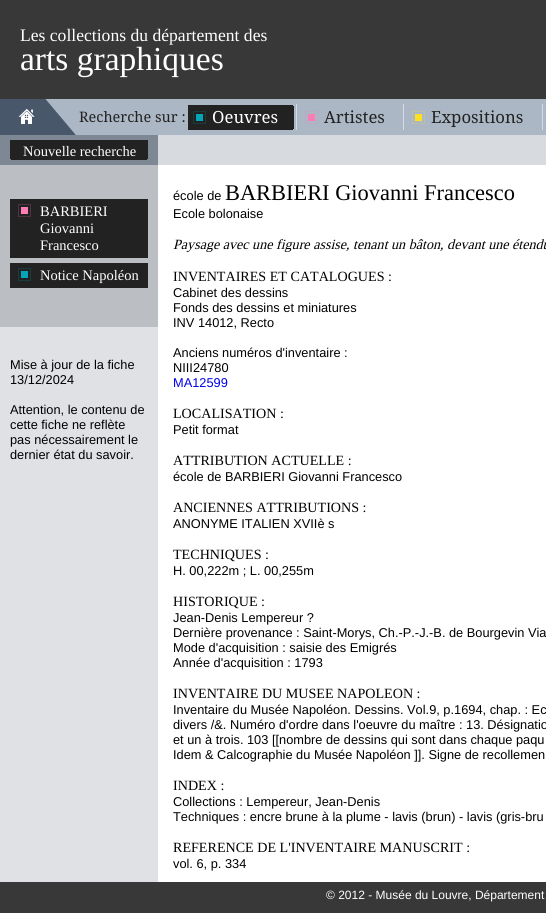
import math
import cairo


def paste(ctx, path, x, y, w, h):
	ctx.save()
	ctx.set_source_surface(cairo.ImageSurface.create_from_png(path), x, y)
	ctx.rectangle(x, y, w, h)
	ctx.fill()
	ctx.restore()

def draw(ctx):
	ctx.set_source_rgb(1, 1, 1)
	ctx.paint()
	ctx.set_source_rgb(0.22, 0.22, 0.22)
	ctx.rectangle(0, 0, 546, 99)
	ctx.fill()
	ctx.select_font_face('Tinos')
	ctx.set_font_size(17.6)
	ctx.set_source_rgb(1, 1, 1)
	ctx.move_to(20, 41)
	ctx.show_text('Les collections du département des')
	ctx.set_font_size(33.5)
	ctx.move_to(20, 70)
	ctx.show_text('arts graphiques')
	ctx.set_source_rgb(0.671, 0.718, 0.769)
	ctx.rectangle(76, 99, 470, 36)
	ctx.fill()
	paste(ctx, 'media/1.png', 0, 99, 76, 36)
	paste(ctx, 'media/2.png', 18, 108, 17, 16)
	ctx.select_font_face('Droid Serif')
	ctx.set_font_size(14.5)
	ctx.set_source_rgb(0.133, 0.133, 0.133)
	ctx.move_to(79, 122)
	ctx.show_text('Recherche sur :')
	ctx.set_source_rgb(0.835, 0.859, 0.886)
	ctx.rectangle(296, 104, 1, 26)
	ctx.fill()
	ctx.set_source_rgb(0.133, 0.133, 0.133)
	ctx.rectangle(188, 105, 105, 25)
	ctx.fill()
	paste(ctx, 'media/3.png', 293, 105, 1, 25)
	paste(ctx, 'media/4.png', 193, 111, 13, 13)
	ctx.set_font_size(16.75)
	ctx.set_source_rgb(1, 1, 1)
	ctx.move_to(212, 123)
	ctx.show_text('Oeuvres')
	ctx.set_source_rgb(0.835, 0.859, 0.886)
	ctx.rectangle(403, 104, 1, 26)
	ctx.fill()
	paste(ctx, 'media/5.png', 305, 111, 13, 13)
	ctx.set_source_rgb(0.133, 0.133, 0.133)
	ctx.move_to(324, 123)
	ctx.show_text('Artistes')
	ctx.set_source_rgb(0.835, 0.859, 0.886)
	ctx.rectangle(542, 104, 1, 26)
	ctx.fill()
	paste(ctx, 'media/6.png', 412, 111, 13, 13)
	ctx.set_source_rgb(0.133, 0.133, 0.133)
	ctx.move_to(431, 123)
	ctx.show_text('Expositions')
	ctx.set_source_rgb(0.875, 0.882, 0.894)
	ctx.rectangle(0, 327, 158, 555)
	ctx.fill()
	ctx.set_source_rgb(0.49, 0.533, 0.58)
	ctx.rectangle(0, 135, 158, 30)
	ctx.fill()
	ctx.set_source_rgb(0.133, 0.133, 0.133)
	ctx.rectangle(10, 140, 138, 18)
	ctx.fill()
	ctx.select_font_face('Tinos')
	ctx.set_font_size(14.5)
	ctx.set_source_rgb(1, 1, 1)
	ctx.move_to(23, 156)
	ctx.show_text('Nouvelle recherche')
	paste(ctx, 'media/7.png', 10, 158, 138, 2)
	ctx.set_source_rgb(0.733, 0.749, 0.769)
	ctx.rectangle(0, 165, 158, 162)
	ctx.fill()
	ctx.set_source_rgb(0.133, 0.133, 0.133)
	ctx.rectangle(10, 199, 138, 59)
	ctx.fill()
	paste(ctx, 'media/8.png', 18, 204, 13, 13)
	ctx.set_source_rgb(1, 1, 1)
	for x, y, s in [
		(40, 216, 'BARBIERI'),
		(40, 233, 'Giovanni'),
		(40, 250, 'Francesco'),
	]:
		ctx.move_to(x, y)
		ctx.show_text(s)
	ctx.set_source_rgb(0.133, 0.133, 0.133)
	ctx.rectangle(10, 263, 138, 25)
	ctx.fill()
	paste(ctx, 'media/4.png', 18, 268, 13, 13)
	ctx.set_source_rgb(1, 1, 1)
	ctx.move_to(40, 280)
	ctx.show_text('Notice Napoléon')
	ctx.select_font_face('Liberation Sans')
	ctx.set_font_size(12.8)
	ctx.set_source_rgb(0, 0, 0)
	for x, y, s in [
		(10, 369, 'Mise à jour de la fiche'),
		(10, 384, '13/12/2024'),
		(10, 414, 'Attention, le contenu de'),
		(10, 429, 'cette fiche ne reflète'),
		(10, 444, 'pas nécessairement le'),
		(10, 459, 'dernier état du savoir.'),
	]:
		ctx.move_to(x, y)
		ctx.show_text(s)
	ctx.set_source_rgb(0.843, 0.859, 0.875)
	ctx.rectangle(158, 135, 388, 30)
	ctx.fill()
	ctx.set_source_rgb(0, 0, 0)
	ctx.move_to(173, 200)
	ctx.show_text('école de')
	ctx.select_font_face('Tinos')
	ctx.set_font_size(22.4)
	ctx.move_to(225, 200)
	ctx.show_text('BARBIERI Giovanni Francesco')
	ctx.select_font_face('Liberation Sans')
	ctx.set_font_size(12.8)
	ctx.move_to(173, 218)
	ctx.show_text('Ecole bolonaise')
	ctx.select_font_face('Tinos', cairo.FONT_SLANT_ITALIC)
	ctx.set_font_size(14.1)
	ctx.move_to(173, 249)
	ctx.show_text('Paysage avec une figure assise, tenant un bâton, devant une étendu')
	ctx.select_font_face('Tinos')
	ctx.move_to(173, 281)
	ctx.show_text('INVENTAIRES ET CATALOGUES :')
	ctx.select_font_face('Liberation Sans')
	ctx.set_font_size(12.8)
	for x, y, s in [
		(173, 297, 'Cabinet des dessins'),
		(173, 312, 'Fonds des dessins et miniatures'),
		(173, 327, 'INV 14012, Recto'),
		(173, 357, 'Anciens numéros d\'inventaire :'),
		(173, 372, 'NIII24780'),
	]:
		ctx.move_to(x, y)
		ctx.show_text(s)
	ctx.set_source_rgb(0, 0, 0.933)
	ctx.move_to(173, 387)
	ctx.show_text('MA12599')
	ctx.select_font_face('Tinos')
	ctx.set_font_size(14.1)
	ctx.set_source_rgb(0, 0, 0)
	ctx.move_to(173, 418)
	ctx.show_text('LOCALISATION :')
	ctx.select_font_face('Liberation Sans')
	ctx.set_font_size(12.8)
	ctx.move_to(173, 434)
	ctx.show_text('Petit format')
	ctx.select_font_face('Tinos')
	ctx.set_font_size(14.1)
	ctx.move_to(173, 465)
	ctx.show_text('ATTRIBUTION ACTUELLE :')
	ctx.select_font_face('Liberation Sans')
	ctx.set_font_size(12.8)
	ctx.move_to(173, 481)
	ctx.show_text('école de BARBIERI Giovanni Francesco')
	ctx.select_font_face('Tinos')
	ctx.set_font_size(14.1)
	ctx.move_to(173, 512)
	ctx.show_text('ANCIENNES ATTRIBUTIONS :')
	ctx.select_font_face('Liberation Sans')
	ctx.set_font_size(12.8)
	ctx.move_to(173, 528)
	ctx.show_text('ANONYME ITALIEN XVIIè s')
	ctx.select_font_face('Tinos')
	ctx.set_font_size(14.1)
	ctx.move_to(173, 559)
	ctx.show_text('TECHNIQUES :')
	ctx.select_font_face('Liberation Sans')
	ctx.set_font_size(12.8)
	ctx.move_to(173, 575)
	ctx.show_text('H. 00,222m ; L. 00,255m')
	ctx.select_font_face('Tinos')
	ctx.set_font_size(14.1)
	ctx.move_to(173, 606)
	ctx.show_text('HISTORIQUE :')
	ctx.select_font_face('Liberation Sans')
	ctx.set_font_size(12.8)
	for x, y, s in [
		(173, 622, 'Jean-Denis Lempereur ?'),
		(173, 637, 'Dernière provenance : Saint-Morys, Ch.-P.-J.-B. de Bourgevin Via'),
		(173, 652, 'Mode d\'acquisition : saisie des Emigrés'),
		(173, 667, 'Année d\'acquisition : 1793'),
	]:
		ctx.move_to(x, y)
		ctx.show_text(s)
	ctx.select_font_face('Tinos')
	ctx.set_font_size(14.1)
	ctx.move_to(173, 698)
	ctx.show_text('INVENTAIRE DU MUSEE NAPOLEON :')
	ctx.select_font_face('Liberation Sans')
	ctx.set_font_size(12.8)
	for x, y, s in [
		(173, 714, 'Inventaire du Musée Napoléon. Dessins. Vol.9, p.1694, chap. : Ec'),
		(173, 729, 'divers /&. Numéro d\'ordre dans l\'oeuvre du maître : 13. Désignatio'),
		(173, 744, 'et un à trois. 103 [[nombre de dessins qui sont dans chaque paqu'),
		(173, 759, 'Idem & Calcographie du Musée Napoléon ]]. Signe de recollemen'),
	]:
		ctx.move_to(x, y)
		ctx.show_text(s)
	ctx.select_font_face('Tinos')
	ctx.set_font_size(14.1)
	ctx.move_to(173, 790)
	ctx.show_text('INDEX :')
	ctx.select_font_face('Liberation Sans')
	ctx.set_font_size(12.8)
	ctx.move_to(173, 806)
	ctx.show_text('Collections : Lempereur, Jean-Denis')
	ctx.move_to(173, 821)
	ctx.show_text('Techniques : encre brune à la plume - lavis (brun) - lavis (gris-bru')
	ctx.select_font_face('Tinos')
	ctx.set_font_size(14.1)
	ctx.move_to(173, 852)
	ctx.show_text('REFERENCE DE L\'INVENTAIRE MANUSCRIT :')
	ctx.select_font_face('Liberation Sans')
	ctx.set_font_size(12.8)
	ctx.move_to(173, 868)
	ctx.show_text('vol. 6, p. 334')
	ctx.set_source_rgb(0.22, 0.22, 0.22)
	ctx.rectangle(0, 882, 546, 31)
	ctx.fill()
	ctx.set_font_size(12)
	ctx.set_source_rgb(1, 1, 1)
	ctx.move_to(326, 899)
	ctx.show_text('© 2012 - Musée du Louvre, Département')


surface = cairo.ImageSurface(cairo.FORMAT_RGB24, 546, 913)
ctx = cairo.Context(surface)
options = cairo.FontOptions()
options.set_hint_metrics(cairo.HINT_METRICS_OFF)
options.set_hint_style(cairo.HINT_STYLE_NONE)
ctx.set_font_options(options)
ctx.set_miter_limit(4)
draw(ctx)
surface.write_to_png('image.png')
